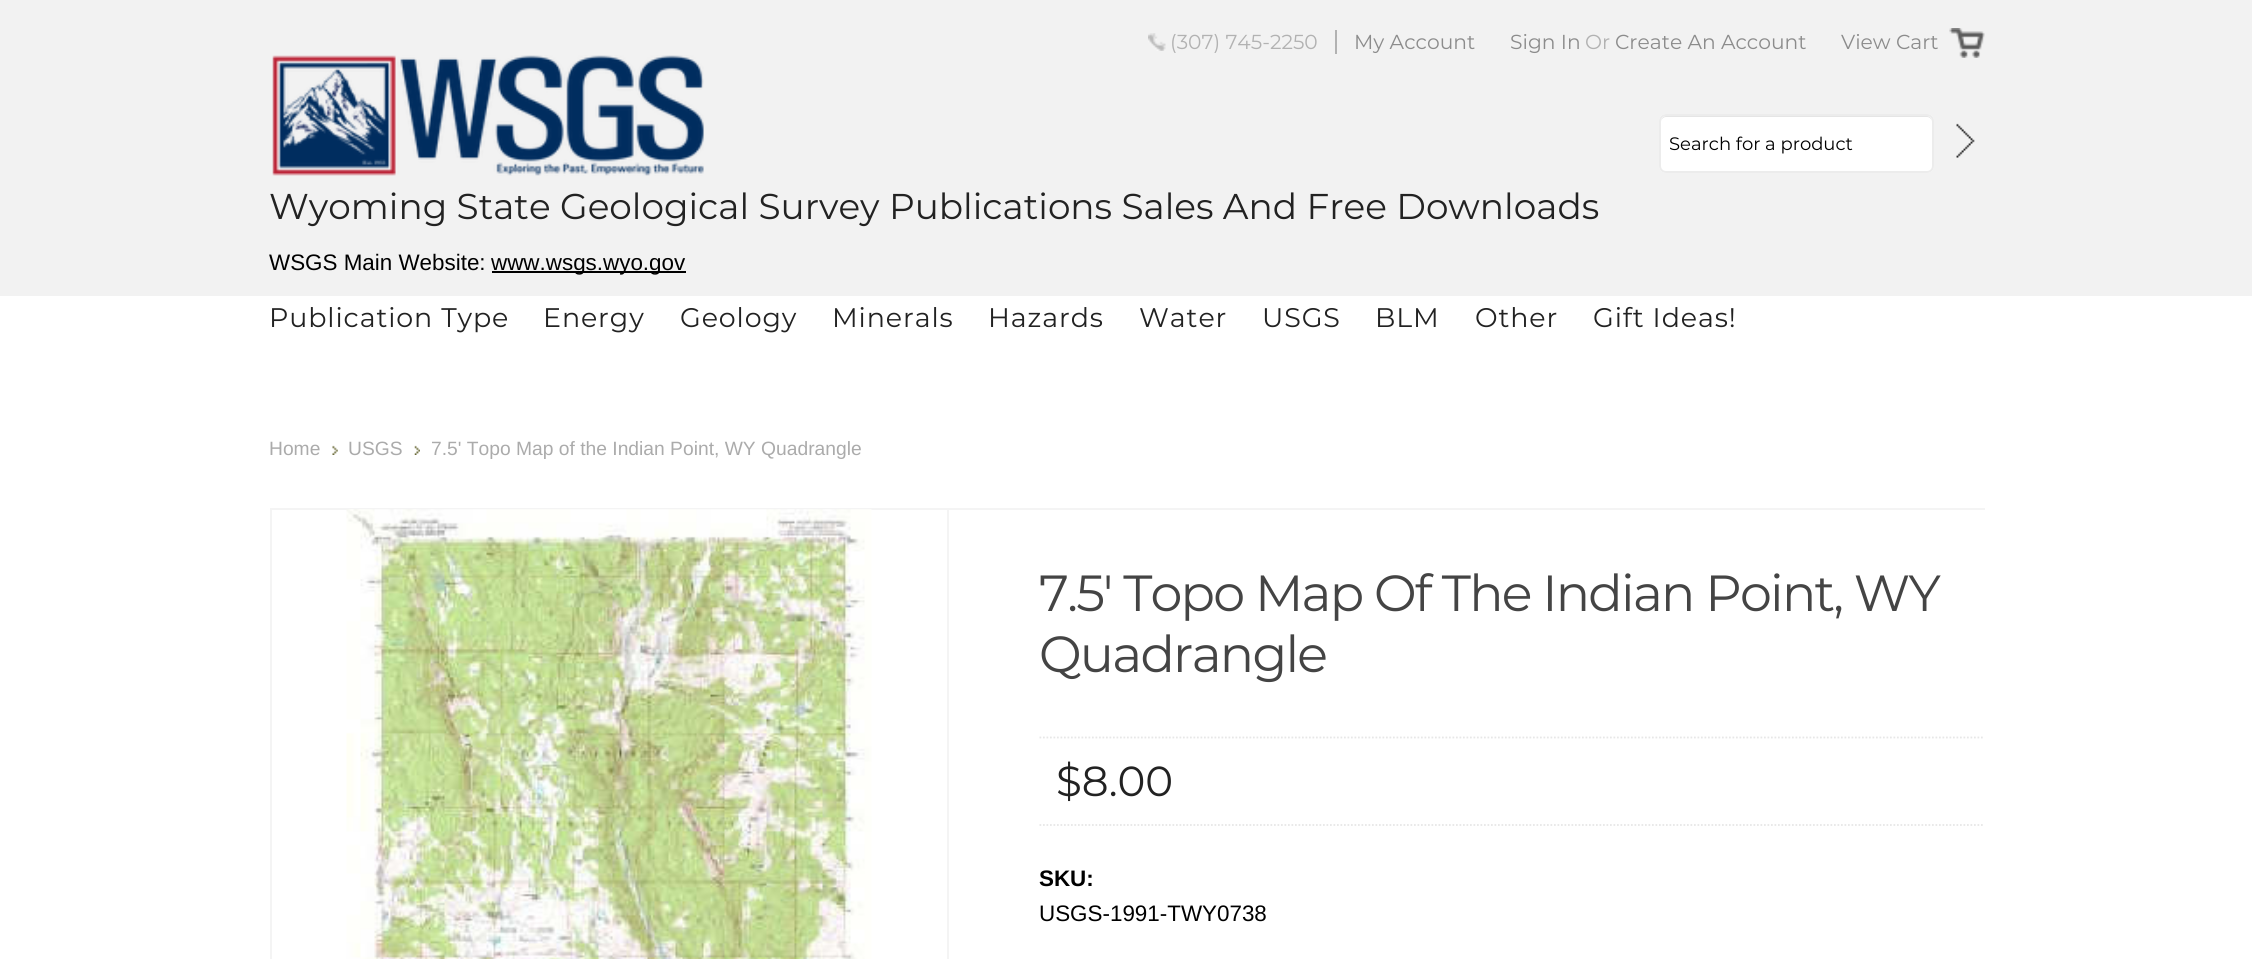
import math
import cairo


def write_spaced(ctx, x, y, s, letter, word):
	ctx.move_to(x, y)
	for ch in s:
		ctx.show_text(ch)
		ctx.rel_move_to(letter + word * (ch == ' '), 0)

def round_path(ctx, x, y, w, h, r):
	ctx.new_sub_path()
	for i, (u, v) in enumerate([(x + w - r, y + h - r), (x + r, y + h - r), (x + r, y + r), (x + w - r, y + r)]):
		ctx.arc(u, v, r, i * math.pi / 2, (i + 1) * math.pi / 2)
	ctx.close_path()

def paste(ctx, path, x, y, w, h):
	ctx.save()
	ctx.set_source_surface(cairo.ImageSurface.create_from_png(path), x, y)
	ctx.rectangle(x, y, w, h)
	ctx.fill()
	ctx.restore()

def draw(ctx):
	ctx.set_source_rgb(1, 1, 1)
	ctx.paint()
	ctx.set_source_rgb(0.949, 0.949, 0.949)
	ctx.rectangle(0, 0, 2252, 296)
	ctx.fill()
	paste(ctx, 'media/1.png', 1148, 33, 18, 18)
	ctx.set_source_rgb(0.698, 0.698, 0.698)
	ctx.rectangle(1335, 30, 2, 24)
	ctx.fill()
	ctx.select_font_face('Montserrat Thin')
	ctx.set_font_size(20.25)
	ctx.move_to(1170, 49)
	ctx.show_text('(307) 745-2250')
	ctx.set_source_rgb(0.549, 0.549, 0.549)
	ctx.move_to(1354, 49)
	ctx.show_text('My Account')
	ctx.move_to(1510, 49)
	ctx.show_text('Sign In')
	ctx.set_source_rgb(0.698, 0.698, 0.698)
	ctx.move_to(1585, 49)
	ctx.show_text('Or')
	ctx.set_source_rgb(0.549, 0.549, 0.549)
	ctx.move_to(1615, 49)
	ctx.show_text('Create An Account')
	paste(ctx, 'media/2.png', 1949, 28, 36, 30)
	ctx.move_to(1841, 49)
	ctx.show_text('View Cart')
	ctx.set_source_rgb(1, 1, 1)
	round_path(ctx, 1659, 114, 275, 59, 7)
	ctx.fill()
	ctx.set_source_rgb(0.898, 0.898, 0.898)
	ctx.new_path()
	ctx.move_to(1666, 117)
	ctx.line_to(1927, 117)
	ctx.curve_to(1930, 117, 1932, 120, 1932, 122)
	ctx.curve_to(1932, 119, 1930, 116, 1927, 116)
	ctx.line_to(1666, 116)
	ctx.curve_to(1663, 116, 1661, 119, 1661, 122)
	ctx.curve_to(1661, 120, 1663, 117, 1666, 117)
	ctx.close_path()
	ctx.fill()
	round_path(ctx, 1660, 115, 273, 57, 6)
	ctx.set_source_rgb(0.925, 0.925, 0.925)
	ctx.stroke()
	ctx.save()
	ctx.rectangle(1670, 133, 253, 23)
	ctx.clip()
	ctx.set_font_size(18)
	ctx.set_source_rgb(0, 0, 0)
	ctx.move_to(1669, 150)
	ctx.show_text('Search for a product')
	ctx.restore()
	paste(ctx, 'media/3.png', 1956, 123, 19, 35)
	paste(ctx, 'media/4.png', 272, 55, 432, 121)
	ctx.set_font_size(35.85)
	ctx.set_source_rgb(0.133, 0.133, 0.133)
	ctx.move_to(269, 219)
	ctx.show_text('Wyoming State Geological Survey Publications Sales And Free Downloads')
	ctx.select_font_face('Liberation Sans')
	ctx.set_font_size(22.4)
	ctx.set_source_rgb(0, 0, 0)
	ctx.move_to(269, 270)
	ctx.show_text('WSGS Main Website:')
	ctx.rectangle(492, 271, 194, 2)
	ctx.fill()
	ctx.move_to(491, 270)
	ctx.show_text('www.wsgs.wyo.gov')
	ctx.select_font_face('Montserrat Thin')
	ctx.set_font_size(26.9)
	ctx.set_source_rgb(0.133, 0.133, 0.133)
	for x, y, s in [
		(269, 327, 'Publication Type'),
		(543, 327, 'Energy'),
		(680, 327, 'Geology'),
		(832, 327, 'Minerals'),
		(988, 327, 'Hazards'),
		(1139, 327, 'Water'),
		(1262, 327, 'USGS'),
		(1375, 327, 'BLM'),
		(1475, 327, 'Other'),
		(1593, 327, 'Gift Ideas!'),
	]:
		write_spaced(ctx, x, y, s, 0.9, 0)
	ctx.select_font_face('Liberation Sans')
	ctx.set_font_size(19.25)
	ctx.set_source_rgb(0.671, 0.671, 0.671)
	ctx.move_to(269, 455)
	ctx.show_text('Home')
	paste(ctx, 'media/5.png', 332, 445, 6, 10)
	ctx.move_to(348, 455)
	ctx.show_text('USGS')
	paste(ctx, 'media/6.png', 414, 445, 6, 10)
	ctx.move_to(431, 455)
	ctx.show_text('7.5\' Topo Map of the Indian Point, WY Quadrangle')
	ctx.set_source_rgb(0.957, 0.957, 0.957)
	ctx.rectangle(270, 508, 1715, 2)
	ctx.rectangle(947, 509, 2, 450)
	ctx.rectangle(270, 509, 2, 450)
	ctx.fill()
	paste(ctx, 'media/7.png', 346, 509, 526, 450)
	ctx.select_font_face('Montserrat Thin')
	ctx.set_font_size(50.75)
	ctx.set_source_rgb(0.267, 0.267, 0.267)
	write_spaced(ctx, 1039, 611, '7.5\' Topo Map Of The Indian Point, WY', -1.75, 0)
	write_spaced(ctx, 1039, 672, 'Quadrangle', -1.75, 0)
	ctx.new_path()
	ctx.move_to(1039.5, 737.5)
	ctx.line_to(1984.5, 737.5)
	ctx.set_source_rgb(0.906, 0.906, 0.906)
	ctx.set_line_width(1.8)
	ctx.set_dash([1.75, 1.75])
	ctx.stroke()
	ctx.new_path()
	ctx.move_to(1039.5, 825)
	ctx.line_to(1984.5, 825)
	ctx.stroke()
	ctx.set_font_size(42)
	ctx.set_source_rgb(0.133, 0.133, 0.133)
	ctx.move_to(1056, 796)
	ctx.show_text('$8.00')
	ctx.select_font_face('Liberation Sans', cairo.FONT_SLANT_NORMAL, cairo.FONT_WEIGHT_BOLD)
	ctx.set_font_size(22.4)
	ctx.set_source_rgb(0, 0, 0)
	ctx.move_to(1039, 886)
	ctx.show_text('SKU:')
	ctx.select_font_face('Liberation Sans')
	ctx.move_to(1039, 921)
	ctx.show_text('USGS-1991-TWY0738')


surface = cairo.ImageSurface(cairo.FORMAT_RGB24, 2252, 959)
ctx = cairo.Context(surface)
options = cairo.FontOptions()
options.set_hint_metrics(cairo.HINT_METRICS_OFF)
options.set_hint_style(cairo.HINT_STYLE_NONE)
ctx.set_font_options(options)
ctx.set_miter_limit(4)
draw(ctx)
surface.write_to_png('image.png')
